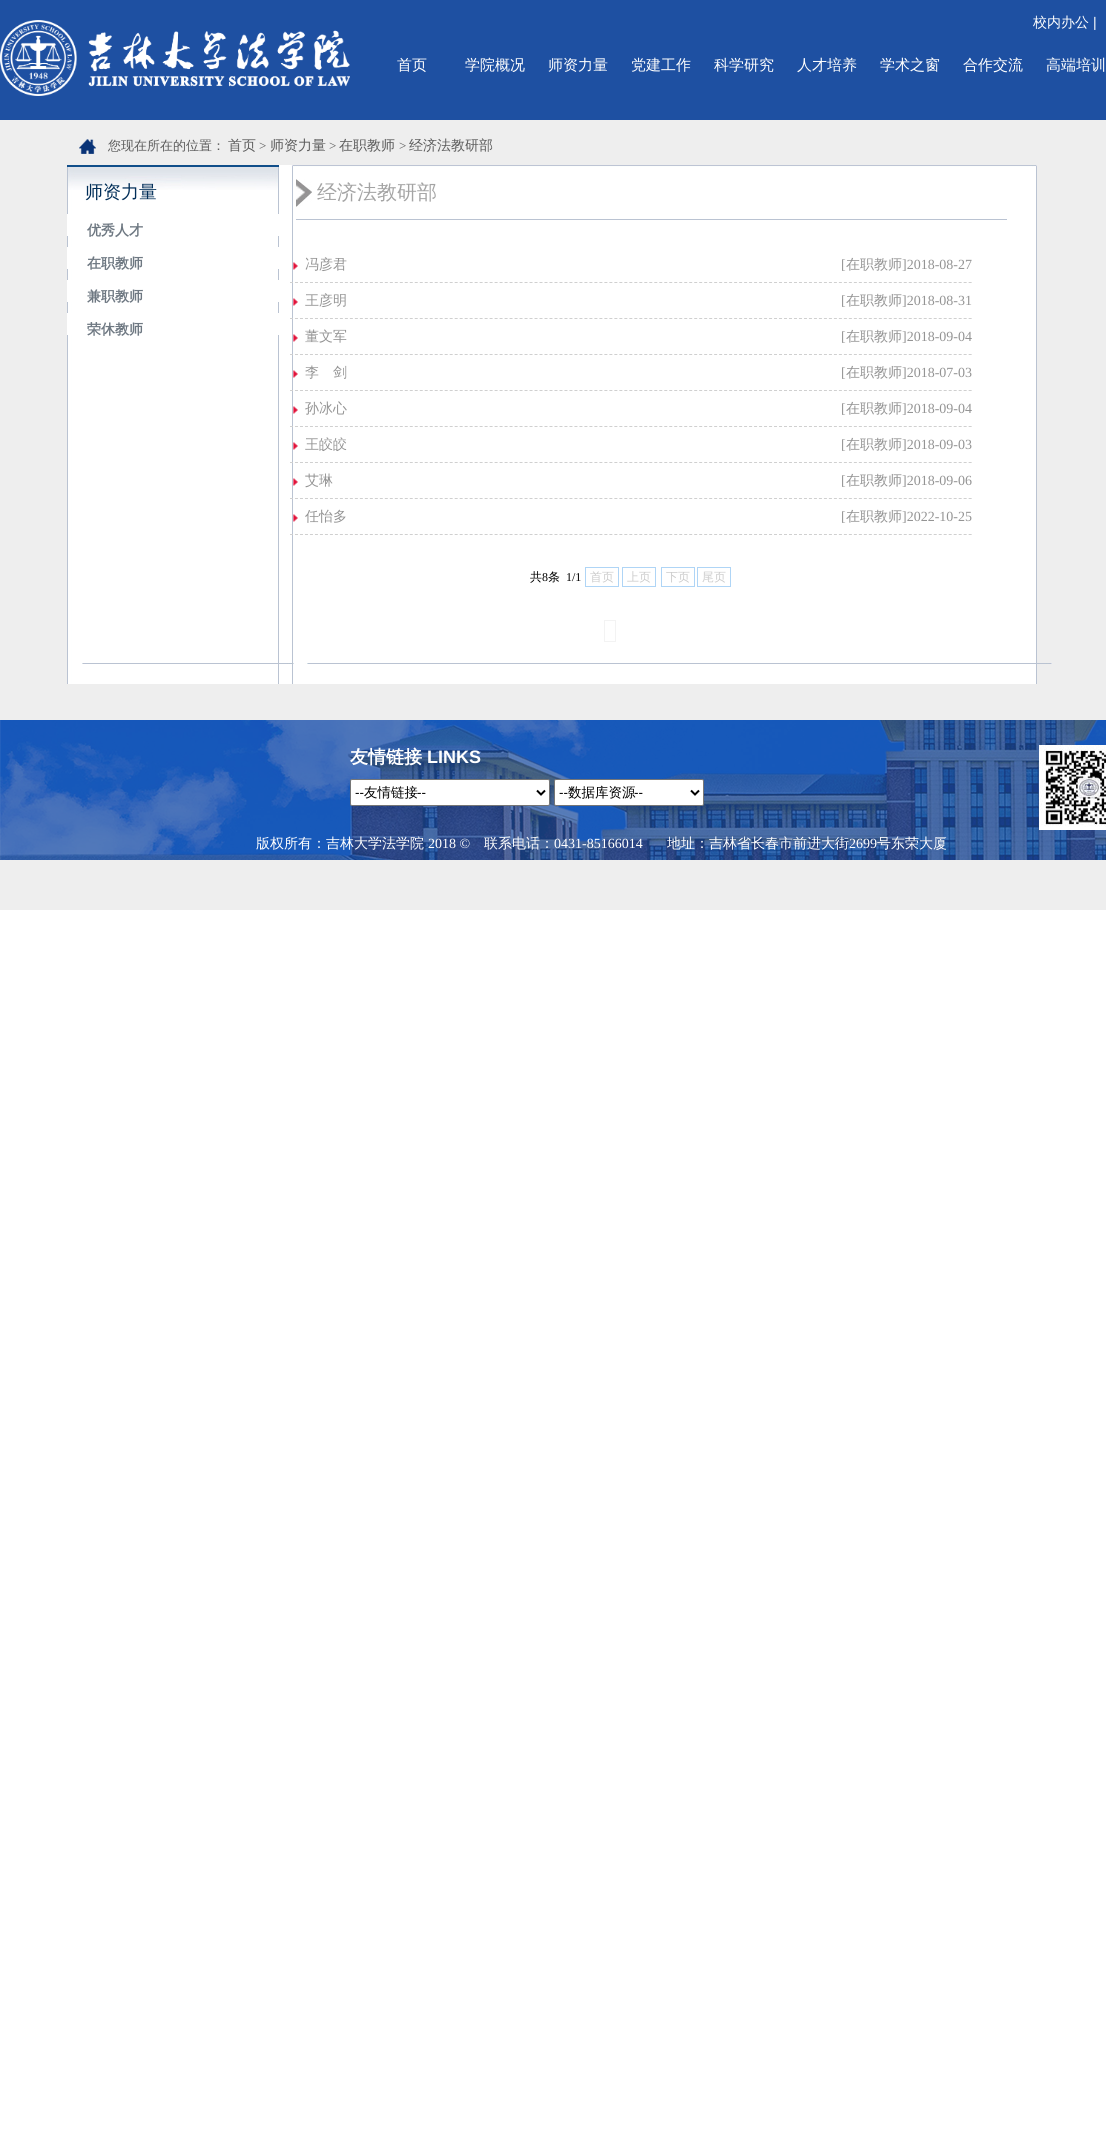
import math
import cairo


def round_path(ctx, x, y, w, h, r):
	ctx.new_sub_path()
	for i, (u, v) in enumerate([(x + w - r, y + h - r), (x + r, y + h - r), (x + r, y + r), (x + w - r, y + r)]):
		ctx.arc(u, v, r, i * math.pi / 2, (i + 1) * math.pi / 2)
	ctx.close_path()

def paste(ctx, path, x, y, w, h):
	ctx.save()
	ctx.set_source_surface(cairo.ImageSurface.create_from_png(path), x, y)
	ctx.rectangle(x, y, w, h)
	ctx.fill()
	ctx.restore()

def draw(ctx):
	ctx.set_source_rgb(1, 1, 1)
	ctx.paint()
	ctx.set_source_rgb(0.118, 0.314, 0.635)
	ctx.rectangle(0, 0, 1106, 120)
	ctx.fill()
	paste(ctx, 'media/1.png', 0, 20, 350, 76)
	ctx.select_font_face('WenQuanYi Zen Hei Medium')
	ctx.set_font_size(14)
	ctx.set_source_rgb(1, 1, 1)
	ctx.move_to(1033, 27)
	ctx.show_text('校内办公')
	ctx.select_font_face('Liberation Sans')
	ctx.move_to(1093, 27)
	ctx.show_text('|')
	ctx.select_font_face('WenQuanYi Zen Hei Medium')
	ctx.set_font_size(15)
	for x, y, s in [
		(397, 70, '首页'),
		(465, 70, '学院概况'),
		(548, 70, '师资力量'),
		(631, 70, '党建工作'),
		(714, 70, '科学研究'),
		(797, 70, '人才培养'),
		(880, 70, '学术之窗'),
		(963, 70, '合作交流'),
		(1046, 70, '高端培训'),
	]:
		ctx.move_to(x, y)
		ctx.show_text(s)
	ctx.set_source_rgb(0.933, 0.933, 0.933)
	ctx.rectangle(0, 120, 1106, 790)
	ctx.fill()
	paste(ctx, 'media/2.png', 79, 139, 17, 15)
	ctx.set_font_size(13)
	ctx.set_source_rgb(0.357, 0.357, 0.357)
	ctx.move_to(108, 150)
	ctx.show_text('您现在所在的位置：')
	ctx.set_font_size(14)
	ctx.move_to(228, 150)
	ctx.show_text('首页')
	ctx.select_font_face('Liberation Serif')
	ctx.set_font_size(13)
	ctx.move_to(259, 150)
	ctx.show_text('>')
	ctx.select_font_face('WenQuanYi Zen Hei Medium')
	ctx.set_font_size(14)
	ctx.move_to(270, 150)
	ctx.show_text('师资力量')
	ctx.select_font_face('Liberation Serif')
	ctx.set_font_size(13)
	ctx.move_to(329, 150)
	ctx.show_text('>')
	ctx.select_font_face('WenQuanYi Zen Hei Medium')
	ctx.set_font_size(14)
	ctx.move_to(339, 150)
	ctx.show_text('在职教师')
	ctx.select_font_face('Liberation Serif')
	ctx.set_font_size(13)
	ctx.move_to(399, 150)
	ctx.show_text('>')
	ctx.select_font_face('WenQuanYi Zen Hei Medium')
	ctx.set_font_size(14)
	ctx.move_to(409, 150)
	ctx.show_text('经济法教研部')
	paste(ctx, 'media/3.png', 67, 167, 970, 517)
	paste(ctx, 'media/4.png', 67, 165, 970, 2)
	paste(ctx, 'media/5.png', 68, 167, 210, 23)
	ctx.set_font_size(18)
	ctx.set_source_rgb(0.004, 0.18, 0.345)
	ctx.move_to(85, 198)
	ctx.show_text('师资力量')
	ctx.set_source_rgb(1, 1, 1)
	ctx.rectangle(67, 214, 212, 22)
	ctx.fill()
	ctx.select_font_face('WenQuanYi Zen Hei', cairo.FONT_SLANT_NORMAL, cairo.FONT_WEIGHT_BOLD)
	ctx.set_font_size(14)
	ctx.set_source_rgb(0.431, 0.471, 0.51)
	ctx.move_to(87, 235)
	ctx.show_text('优秀人才')
	ctx.set_source_rgb(1, 1, 1)
	ctx.rectangle(67, 247, 212, 22)
	ctx.fill()
	ctx.set_source_rgb(0.431, 0.471, 0.51)
	ctx.move_to(87, 268)
	ctx.show_text('在职教师')
	ctx.set_source_rgb(1, 1, 1)
	ctx.rectangle(67, 280, 212, 22)
	ctx.fill()
	ctx.set_source_rgb(0.431, 0.471, 0.51)
	ctx.move_to(87, 301)
	ctx.show_text('兼职教师')
	ctx.set_source_rgb(1, 1, 1)
	ctx.rectangle(67, 313, 212, 22)
	ctx.fill()
	ctx.set_source_rgb(0.431, 0.471, 0.51)
	ctx.move_to(87, 334)
	ctx.show_text('荣休教师')
	ctx.set_source_rgb(0.729, 0.765, 0.824)
	ctx.rectangle(296, 219, 711, 1)
	ctx.fill()
	paste(ctx, 'media/6.png', 296, 179, 16, 28)
	ctx.select_font_face('WenQuanYi Zen Hei Medium')
	ctx.set_font_size(20)
	ctx.set_source_rgb(0.643, 0.643, 0.643)
	ctx.move_to(317, 199)
	ctx.show_text('经济法教研部')
	paste(ctx, 'media/7.png', 293, 262, 5, 8)
	ctx.new_path()
	ctx.move_to(290, 282.5)
	ctx.line_to(972, 282.5)
	ctx.set_source_rgb(0.816, 0.816, 0.816)
	ctx.set_line_width(1)
	ctx.set_dash([3, 1.99])
	ctx.stroke()
	ctx.set_font_size(14)
	ctx.set_source_rgb(0.58, 0.58, 0.58)
	ctx.move_to(305, 269)
	ctx.show_text('冯彦君')
	ctx.select_font_face('Liberation Serif')
	ctx.move_to(841, 269)
	ctx.show_text('[')
	ctx.select_font_face('WenQuanYi Zen Hei Medium')
	ctx.move_to(846, 269)
	ctx.show_text('在职教师')
	ctx.select_font_face('Liberation Serif')
	ctx.move_to(902, 269)
	ctx.show_text(']2018-08-27')
	paste(ctx, 'media/7.png', 293, 298, 5, 8)
	ctx.new_path()
	ctx.move_to(290, 318.5)
	ctx.line_to(972, 318.5)
	ctx.set_source_rgb(0.816, 0.816, 0.816)
	ctx.stroke()
	ctx.select_font_face('WenQuanYi Zen Hei Medium')
	ctx.set_source_rgb(0.58, 0.58, 0.58)
	ctx.move_to(305, 305)
	ctx.show_text('王彦明')
	ctx.select_font_face('Liberation Serif')
	ctx.move_to(841, 305)
	ctx.show_text('[')
	ctx.select_font_face('WenQuanYi Zen Hei Medium')
	ctx.move_to(846, 305)
	ctx.show_text('在职教师')
	ctx.select_font_face('Liberation Serif')
	ctx.move_to(902, 305)
	ctx.show_text(']2018-08-31')
	paste(ctx, 'media/7.png', 293, 334, 5, 8)
	ctx.new_path()
	ctx.move_to(290, 354.5)
	ctx.line_to(972, 354.5)
	ctx.set_source_rgb(0.816, 0.816, 0.816)
	ctx.stroke()
	ctx.select_font_face('WenQuanYi Zen Hei Medium')
	ctx.set_source_rgb(0.58, 0.58, 0.58)
	ctx.move_to(305, 341)
	ctx.show_text('董文军')
	ctx.select_font_face('Liberation Serif')
	ctx.move_to(841, 341)
	ctx.show_text('[')
	ctx.select_font_face('WenQuanYi Zen Hei Medium')
	ctx.move_to(846, 341)
	ctx.show_text('在职教师')
	ctx.select_font_face('Liberation Serif')
	ctx.move_to(902, 341)
	ctx.show_text(']2018-09-04')
	paste(ctx, 'media/7.png', 293, 370, 5, 8)
	ctx.new_path()
	ctx.move_to(290, 390.5)
	ctx.line_to(972, 390.5)
	ctx.set_source_rgb(0.816, 0.816, 0.816)
	ctx.stroke()
	ctx.select_font_face('WenQuanYi Zen Hei Medium')
	ctx.set_source_rgb(0.58, 0.58, 0.58)
	ctx.move_to(305, 377)
	ctx.show_text('李　剑')
	ctx.select_font_face('Liberation Serif')
	ctx.move_to(841, 377)
	ctx.show_text('[')
	ctx.select_font_face('WenQuanYi Zen Hei Medium')
	ctx.move_to(846, 377)
	ctx.show_text('在职教师')
	ctx.select_font_face('Liberation Serif')
	ctx.move_to(902, 377)
	ctx.show_text(']2018-07-03')
	paste(ctx, 'media/7.png', 293, 406, 5, 8)
	ctx.new_path()
	ctx.move_to(290, 426.5)
	ctx.line_to(972, 426.5)
	ctx.set_source_rgb(0.816, 0.816, 0.816)
	ctx.stroke()
	ctx.select_font_face('WenQuanYi Zen Hei Medium')
	ctx.set_source_rgb(0.58, 0.58, 0.58)
	ctx.move_to(305, 413)
	ctx.show_text('孙冰心')
	ctx.select_font_face('Liberation Serif')
	ctx.move_to(841, 413)
	ctx.show_text('[')
	ctx.select_font_face('WenQuanYi Zen Hei Medium')
	ctx.move_to(846, 413)
	ctx.show_text('在职教师')
	ctx.select_font_face('Liberation Serif')
	ctx.move_to(902, 413)
	ctx.show_text(']2018-09-04')
	paste(ctx, 'media/7.png', 293, 442, 5, 8)
	ctx.new_path()
	ctx.move_to(290, 462.5)
	ctx.line_to(972, 462.5)
	ctx.set_source_rgb(0.816, 0.816, 0.816)
	ctx.stroke()
	ctx.select_font_face('WenQuanYi Zen Hei Medium')
	ctx.set_source_rgb(0.58, 0.58, 0.58)
	ctx.move_to(305, 449)
	ctx.show_text('王皎皎')
	ctx.select_font_face('Liberation Serif')
	ctx.move_to(841, 449)
	ctx.show_text('[')
	ctx.select_font_face('WenQuanYi Zen Hei Medium')
	ctx.move_to(846, 449)
	ctx.show_text('在职教师')
	ctx.select_font_face('Liberation Serif')
	ctx.move_to(902, 449)
	ctx.show_text(']2018-09-03')
	paste(ctx, 'media/7.png', 293, 478, 5, 8)
	ctx.new_path()
	ctx.move_to(290, 498.5)
	ctx.line_to(972, 498.5)
	ctx.set_source_rgb(0.816, 0.816, 0.816)
	ctx.stroke()
	ctx.select_font_face('WenQuanYi Zen Hei Medium')
	ctx.set_source_rgb(0.58, 0.58, 0.58)
	ctx.move_to(305, 485)
	ctx.show_text('艾琳')
	ctx.select_font_face('Liberation Serif')
	ctx.move_to(841, 485)
	ctx.show_text('[')
	ctx.select_font_face('WenQuanYi Zen Hei Medium')
	ctx.move_to(846, 485)
	ctx.show_text('在职教师')
	ctx.select_font_face('Liberation Serif')
	ctx.move_to(902, 485)
	ctx.show_text(']2018-09-06')
	paste(ctx, 'media/7.png', 293, 514, 5, 8)
	ctx.new_path()
	ctx.move_to(290, 534.5)
	ctx.line_to(972, 534.5)
	ctx.set_source_rgb(0.816, 0.816, 0.816)
	ctx.stroke()
	ctx.select_font_face('WenQuanYi Zen Hei Medium')
	ctx.set_source_rgb(0.58, 0.58, 0.58)
	ctx.move_to(305, 521)
	ctx.show_text('任怡多')
	ctx.select_font_face('Liberation Serif')
	ctx.move_to(841, 521)
	ctx.show_text('[')
	ctx.select_font_face('WenQuanYi Zen Hei Medium')
	ctx.move_to(846, 521)
	ctx.show_text('在职教师')
	ctx.select_font_face('Liberation Serif')
	ctx.move_to(902, 521)
	ctx.show_text(']2022-10-25')
	ctx.select_font_face('WenQuanYi Zen Hei Medium')
	ctx.set_font_size(12)
	ctx.set_source_rgb(0, 0, 0)
	ctx.move_to(530, 581)
	ctx.show_text('共')
	ctx.select_font_face('Liberation Serif')
	ctx.move_to(542, 581)
	ctx.show_text('8')
	ctx.select_font_face('WenQuanYi Zen Hei Medium')
	ctx.move_to(548, 581)
	ctx.show_text('条')
	ctx.select_font_face('Liberation Serif')
	ctx.move_to(566, 581)
	ctx.show_text('1/1')
	ctx.rectangle(585.5, 567.5, 33, 19)
	ctx.set_source_rgb(0.686, 0.835, 0.961)
	ctx.set_dash([])
	ctx.stroke()
	ctx.select_font_face('WenQuanYi Zen Hei Medium')
	ctx.set_source_rgb(0.8, 0.8, 0.8)
	ctx.move_to(590, 581)
	ctx.show_text('首页')
	ctx.rectangle(622.5, 567.5, 33, 19)
	ctx.set_source_rgb(0.686, 0.835, 0.961)
	ctx.stroke()
	ctx.set_source_rgb(0.8, 0.8, 0.8)
	ctx.move_to(627, 581)
	ctx.show_text('上页')
	ctx.rectangle(661.5, 567.5, 33, 19)
	ctx.set_source_rgb(0.686, 0.835, 0.961)
	ctx.stroke()
	ctx.set_source_rgb(0.8, 0.8, 0.8)
	ctx.move_to(666, 581)
	ctx.show_text('下页')
	ctx.rectangle(697.5, 567.5, 33, 19)
	ctx.set_source_rgb(0.686, 0.835, 0.961)
	ctx.stroke()
	ctx.set_source_rgb(0.8, 0.8, 0.8)
	ctx.move_to(702, 581)
	ctx.show_text('尾页')
	ctx.rectangle(604.5, 620.5, 11, 21)
	ctx.set_source_rgb(0.953, 0.953, 0.953)
	ctx.stroke()
	paste(ctx, 'media/8.png', 82, 663, 970, 1)
	paste(ctx, 'media/9.png', 0, 720, 1106, 140)
	ctx.select_font_face('WenQuanYi Zen Hei', cairo.FONT_SLANT_NORMAL, cairo.FONT_WEIGHT_BOLD)
	ctx.set_font_size(18)
	ctx.set_source_rgb(1, 1, 1)
	ctx.move_to(350, 763)
	ctx.show_text('友情链接')
	ctx.select_font_face('Liberation Sans', cairo.FONT_SLANT_NORMAL, cairo.FONT_WEIGHT_BOLD)
	ctx.move_to(427, 763)
	ctx.show_text('LINKS')
	round_path(ctx, 350.5, 779.5, 199, 26, 1.5)
	ctx.fill_preserve()
	ctx.set_source_rgb(0.463, 0.463, 0.463)
	ctx.stroke()
	ctx.new_path()
	ctx.move_to(537, 790.5)
	ctx.line_to(541, 794.5)
	ctx.line_to(545, 790.5)
	ctx.set_source_rgb(0, 0, 0)
	ctx.set_line_width(2)
	ctx.stroke()
	ctx.select_font_face('Liberation Sans')
	ctx.set_font_size(13.5)
	ctx.move_to(355, 797)
	ctx.show_text('--')
	ctx.select_font_face('WenQuanYi Zen Hei Medium')
	ctx.move_to(364, 797)
	ctx.show_text('友情链接')
	ctx.select_font_face('Liberation Sans')
	ctx.move_to(417, 797)
	ctx.show_text('--')
	ctx.set_source_rgb(1, 1, 1)
	round_path(ctx, 554.5, 779.5, 149, 26, 1.5)
	ctx.fill_preserve()
	ctx.set_source_rgb(0.463, 0.463, 0.463)
	ctx.set_line_width(1)
	ctx.stroke()
	ctx.new_path()
	ctx.move_to(691, 790.5)
	ctx.line_to(695, 794.5)
	ctx.line_to(699, 790.5)
	ctx.set_source_rgb(0, 0, 0)
	ctx.set_line_width(2)
	ctx.stroke()
	ctx.move_to(559, 797)
	ctx.show_text('--')
	ctx.select_font_face('WenQuanYi Zen Hei Medium')
	ctx.move_to(568, 797)
	ctx.show_text('数据库资源')
	ctx.select_font_face('Liberation Sans')
	ctx.move_to(634, 797)
	ctx.show_text('--')
	paste(ctx, 'media/10.png', 1039, 745, 67, 85)
	ctx.select_font_face('WenQuanYi Zen Hei Medium')
	ctx.set_font_size(14)
	ctx.set_source_rgb(1, 1, 1)
	ctx.move_to(256, 848)
	ctx.show_text('版权所有：吉林大学法学院')
	ctx.select_font_face('Liberation Serif')
	ctx.move_to(428, 848)
	ctx.show_text('2018 ©')
	ctx.select_font_face('WenQuanYi Zen Hei Medium')
	ctx.move_to(484, 848)
	ctx.show_text('联系电话：')
	ctx.select_font_face('Liberation Serif')
	ctx.move_to(554, 848)
	ctx.show_text('0431-85166014')
	ctx.select_font_face('WenQuanYi Zen Hei Medium')
	ctx.move_to(667, 848)
	ctx.show_text('地址：吉林省长春市前进大街')
	ctx.select_font_face('Liberation Serif')
	ctx.move_to(849, 848)
	ctx.show_text('2699')
	ctx.select_font_face('WenQuanYi Zen Hei Medium')
	ctx.move_to(877, 848)
	ctx.show_text('号东荣大厦')


surface = cairo.ImageSurface(cairo.FORMAT_RGB24, 1106, 2132)
ctx = cairo.Context(surface)
options = cairo.FontOptions()
options.set_hint_metrics(cairo.HINT_METRICS_OFF)
options.set_hint_style(cairo.HINT_STYLE_NONE)
ctx.set_font_options(options)
ctx.set_miter_limit(4)
draw(ctx)
surface.write_to_png('image.png')
